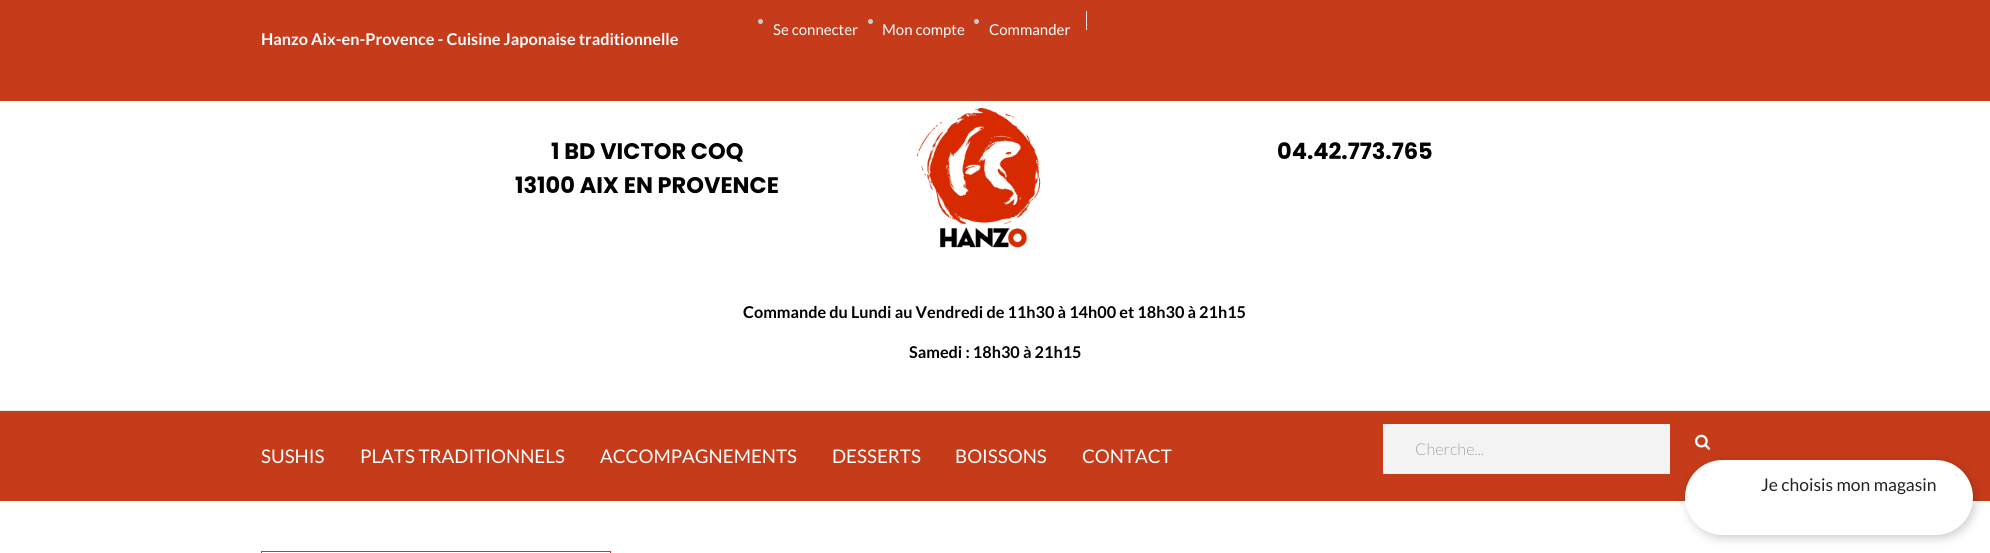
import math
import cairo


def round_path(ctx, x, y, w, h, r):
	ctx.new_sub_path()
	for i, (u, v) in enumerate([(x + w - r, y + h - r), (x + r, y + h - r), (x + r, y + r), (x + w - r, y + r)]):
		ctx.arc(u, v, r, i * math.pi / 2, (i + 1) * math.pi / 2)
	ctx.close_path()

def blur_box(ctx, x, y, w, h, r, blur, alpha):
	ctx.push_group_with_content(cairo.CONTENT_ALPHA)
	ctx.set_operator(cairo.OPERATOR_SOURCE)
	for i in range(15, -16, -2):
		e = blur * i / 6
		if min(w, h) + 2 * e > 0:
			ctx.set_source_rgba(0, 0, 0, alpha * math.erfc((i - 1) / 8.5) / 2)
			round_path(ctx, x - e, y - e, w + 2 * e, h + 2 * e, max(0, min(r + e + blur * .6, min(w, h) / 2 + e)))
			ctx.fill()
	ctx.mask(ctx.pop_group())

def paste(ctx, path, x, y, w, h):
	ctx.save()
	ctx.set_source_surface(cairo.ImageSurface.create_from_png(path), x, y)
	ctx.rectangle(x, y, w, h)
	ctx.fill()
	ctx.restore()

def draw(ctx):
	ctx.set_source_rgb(1, 1, 1)
	ctx.paint()
	ctx.set_source_rgb(0.918, 0.918, 0.918)
	ctx.rectangle(0, 410, 1990, 1)
	ctx.fill()
	ctx.set_source_rgb(0.776, 0.231, 0.102)
	ctx.rectangle(0, 0, 1990, 101)
	ctx.fill()
	ctx.set_source_rgb(0.8, 0.8, 0.8)
	ctx.arc(760.5, 21.5, 2.5, 0, 2 * math.pi)
	ctx.fill()
	ctx.select_font_face('Lato')
	ctx.set_font_size(15)
	ctx.set_source_rgb(1, 1, 1)
	ctx.move_to(773, 35)
	ctx.show_text('Se connecter')
	ctx.set_source_rgb(0.8, 0.8, 0.8)
	ctx.new_path()
	ctx.arc(870.5, 21.5, 2.5, 0, 2 * math.pi)
	ctx.fill()
	ctx.set_source_rgb(1, 1, 1)
	ctx.move_to(882, 35)
	ctx.show_text('Mon compte')
	ctx.set_source_rgb(0.8, 0.8, 0.8)
	ctx.new_path()
	ctx.arc(976.5, 21.5, 2.5, 0, 2 * math.pi)
	ctx.fill()
	ctx.set_source_rgb(1, 1, 1)
	ctx.move_to(989, 35)
	ctx.show_text('Commander')
	ctx.set_source_rgb(0.894, 0.894, 0.894)
	ctx.rectangle(1086, 11, 1, 19)
	ctx.fill()
	ctx.select_font_face('Lato', cairo.FONT_SLANT_NORMAL, cairo.FONT_WEIGHT_BOLD)
	ctx.set_font_size(16.25)
	ctx.set_source_rgb(1, 1, 1)
	ctx.move_to(261, 45)
	ctx.show_text('Hanzo Aix-en-Provence - Cuisine Japonaise traditionnelle')
	ctx.select_font_face('Poppins', cairo.FONT_SLANT_NORMAL, cairo.FONT_WEIGHT_BOLD)
	ctx.set_font_size(22.5)
	ctx.set_source_rgb(0, 0, 0)
	ctx.move_to(551, 159)
	ctx.show_text('1 BD VICTOR COQ')
	ctx.move_to(515, 193)
	ctx.show_text('13100 AIX EN PROVENCE')
	paste(ctx, 'media/1.png', 917, 108, 124, 140)
	ctx.move_to(1277, 159)
	ctx.show_text('04.42.773.765')
	ctx.select_font_face('Lato', cairo.FONT_SLANT_NORMAL, cairo.FONT_WEIGHT_BOLD)
	ctx.set_font_size(16.25)
	ctx.move_to(743, 318)
	ctx.show_text('Commande du Lundi au Vendredi de 11h30 à 14h00 et 18h30 à 21h15')
	ctx.move_to(909, 358)
	ctx.show_text('Samedi : 18h30 à 21h15')
	ctx.set_source_rgb(0.776, 0.231, 0.102)
	ctx.rectangle(0, 411, 1990, 90)
	ctx.fill()
	ctx.select_font_face('Lato')
	ctx.set_font_size(18.75)
	ctx.set_source_rgb(1, 1, 1)
	for x, y, s in [
		(261, 463, 'SUSHIS'),
		(360, 463, 'PLATS TRADITIONNELS'),
		(600, 463, 'ACCOMPAGNEMENTS'),
		(832, 463, 'DESSERTS'),
		(955, 463, 'BOISSONS'),
		(1082, 463, 'CONTACT'),
	]:
		ctx.move_to(x, y)
		ctx.show_text(s)
	ctx.set_source_rgb(0.953, 0.953, 0.953)
	ctx.rectangle(1383, 424, 287, 50)
	ctx.fill()
	ctx.select_font_face('Lato Light')
	ctx.set_font_size(16.25)
	ctx.set_source_rgb(0.655, 0.655, 0.655)
	ctx.move_to(1415, 455)
	ctx.show_text('Cherche...')
	paste(ctx, 'media/2.png', 1695, 434, 16, 16)
	ctx.rectangle(261.5, 551.5, 349, 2)
	ctx.set_source_rgb(0.776, 0.231, 0.102)
	ctx.set_line_width(1)
	ctx.stroke()
	ctx.set_source_rgb(0, 0, 0)
	blur_box(ctx, 1688, 463, 287, 75, 37.5, 5, 0.2)
	ctx.set_source_rgb(1, 1, 1)
	round_path(ctx, 1685, 460, 288, 75, 37.5)
	ctx.fill()
	ctx.select_font_face('Lato')
	ctx.set_font_size(17.5)
	ctx.set_source_rgb(0.137, 0.137, 0.137)
	ctx.move_to(1761, 491)
	ctx.show_text('Je choisis mon magasin')


surface = cairo.ImageSurface(cairo.FORMAT_RGB24, 1990, 553)
ctx = cairo.Context(surface)
options = cairo.FontOptions()
options.set_hint_metrics(cairo.HINT_METRICS_OFF)
options.set_hint_style(cairo.HINT_STYLE_NONE)
ctx.set_font_options(options)
ctx.set_miter_limit(4)
draw(ctx)
surface.write_to_png('image.png')
